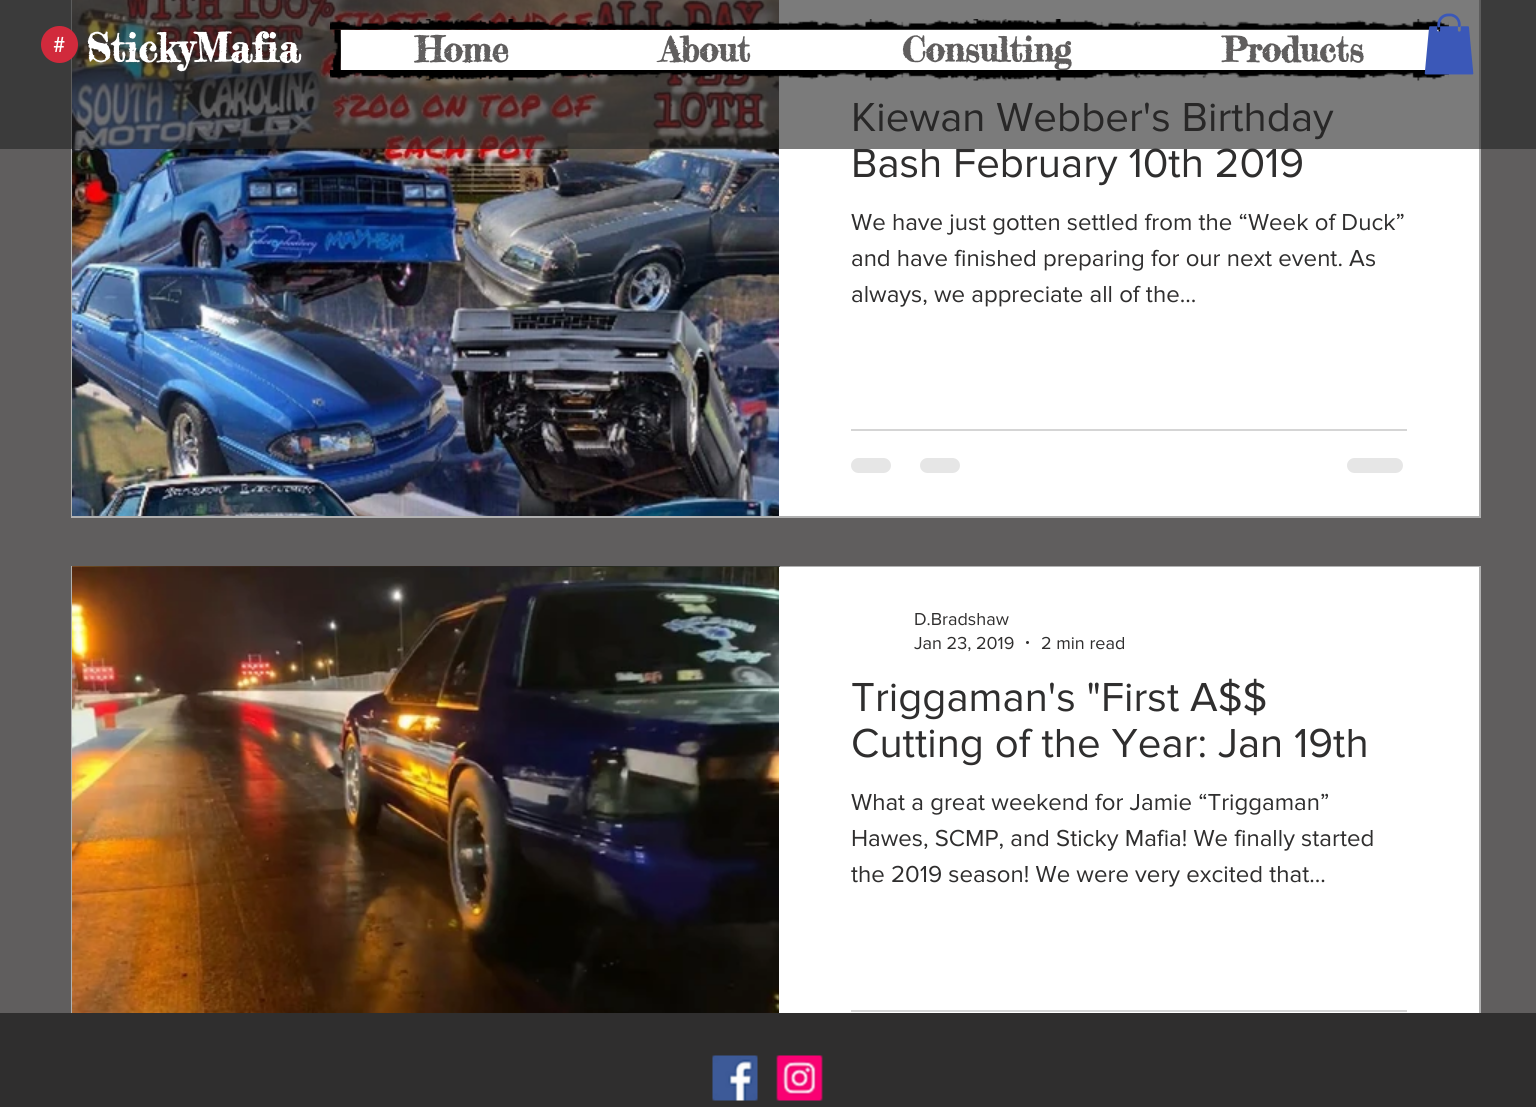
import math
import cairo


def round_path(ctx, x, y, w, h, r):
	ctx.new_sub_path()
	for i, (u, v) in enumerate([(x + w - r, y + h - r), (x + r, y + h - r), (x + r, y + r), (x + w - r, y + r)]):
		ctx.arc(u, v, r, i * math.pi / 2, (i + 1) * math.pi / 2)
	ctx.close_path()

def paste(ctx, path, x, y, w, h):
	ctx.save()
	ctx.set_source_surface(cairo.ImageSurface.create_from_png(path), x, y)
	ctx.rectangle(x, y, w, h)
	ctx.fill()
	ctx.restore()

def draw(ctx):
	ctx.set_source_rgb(0.376, 0.369, 0.369)
	ctx.paint()
	ctx.rectangle(72, -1, 1408, 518)
	ctx.set_source_rgb(0.694, 0.694, 0.694)
	ctx.stroke()
	paste(ctx, 'media/6.png', 72, 0, 707, 516)
	ctx.set_source_rgb(1, 1, 1)
	ctx.rectangle(779, 0, 700, 516)
	ctx.fill()
	ctx.select_font_face('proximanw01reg')
	ctx.set_font_size(42)
	ctx.set_source_rgb(0.184, 0.18, 0.18)
	ctx.move_to(851, 131)
	ctx.show_text('Kiewan Webber\'s Birthday')
	ctx.move_to(851, 177)
	ctx.show_text('Bash February 10th 2019')
	ctx.set_source_rgba(0.137, 0.137, 0.137, 0.6)
	ctx.rectangle(0, 0, 1536, 149)
	ctx.fill()
	ctx.set_source_rgb(0.82, 0.165, 0.235)
	ctx.arc(59.5, 44.5, 18.5, 0, 2 * math.pi)
	ctx.fill()
	ctx.select_font_face('futura')
	ctx.set_font_size(20)
	ctx.set_source_rgb(1, 1, 1)
	ctx.move_to(53, 52)
	ctx.show_text('#')
	ctx.select_font_face('Fredericka the Great', cairo.FONT_SLANT_NORMAL, cairo.FONT_WEIGHT_BOLD)
	ctx.set_font_size(39)
	ctx.move_to(86, 62)
	ctx.show_text('StickyMafia')
	paste(ctx, 'media/1.png', 330, 19, 1119, 11)
	paste(ctx, 'media/2.png', 331, 29, 10, 41)
	ctx.rectangle(341, 30, 1098, 40)
	ctx.fill()
	paste(ctx, 'media/3.png', 1438, 29, 3, 3)
	ctx.set_font_size(34.5)
	ctx.set_source_rgb(0.376, 0.369, 0.369)
	for x, y, s in [
		(415, 62, 'Home'),
		(660, 62, 'About'),
		(902, 62, 'Consulting'),
		(1222, 62, 'Products'),
	]:
		ctx.move_to(x, y)
		ctx.show_text(s)
	paste(ctx, 'media/4.png', 330, 70, 1119, 11)
	paste(ctx, 'media/5.png', 1424, 13, 50, 62)
	ctx.select_font_face('proximanw01reg')
	ctx.set_font_size(24)
	ctx.set_source_rgb(0.184, 0.18, 0.18)
	for x, y, s in [
		(851, 230, 'We have just gotten settled from the “Week of Duck”'),
		(851, 266, 'and have finished preparing for our next event. As'),
		(851, 302, 'always, we appreciate all of the...'),
	]:
		ctx.move_to(x, y)
		ctx.show_text(s)
	ctx.set_source_rgb(0.835, 0.835, 0.835)
	ctx.rectangle(851, 429, 556, 2)
	ctx.fill()
	ctx.set_source_rgb(0.902, 0.902, 0.902)
	round_path(ctx, 851, 458, 40, 15, 7.5)
	ctx.fill()
	round_path(ctx, 920, 458, 40, 15, 7.5)
	ctx.fill()
	round_path(ctx, 1347, 458, 56, 15, 7.5)
	ctx.fill()
	ctx.rectangle(72, 567, 1408, 530)
	ctx.set_source_rgb(0.694, 0.694, 0.694)
	ctx.stroke()
	paste(ctx, 'media/7.png', 72, 566, 708, 1)
	paste(ctx, 'media/8.png', 72, 567, 707, 446)
	ctx.set_source_rgb(1, 1, 1)
	ctx.rectangle(779, 567, 700, 446)
	ctx.fill()
	ctx.set_font_size(18)
	ctx.set_source_rgb(0.184, 0.18, 0.18)
	ctx.move_to(914, 625)
	ctx.show_text('D.Bradshaw')
	ctx.move_to(914, 649)
	ctx.show_text('Jan 23, 2019')
	ctx.new_path()
	ctx.arc(1027.5, 642.5, 1.5, 0, 2 * math.pi)
	ctx.fill()
	ctx.move_to(1041, 649)
	ctx.show_text('2 min read')
	ctx.set_font_size(42)
	ctx.move_to(851, 711)
	ctx.show_text('Triggaman\'s "First A$$')
	ctx.move_to(851, 757)
	ctx.show_text('Cutting of the Year: Jan 19th')
	ctx.set_font_size(24)
	for x, y, s in [
		(851, 810, 'What a great weekend for Jamie “Triggaman”'),
		(851, 846, 'Hawes, SCMP, and Sticky Mafia! We finally started'),
		(851, 882, 'the 2019 season! We were very excited that...'),
	]:
		ctx.move_to(x, y)
		ctx.show_text(s)
	ctx.set_source_rgb(0.835, 0.835, 0.835)
	ctx.rectangle(851, 1010, 556, 2)
	ctx.fill()
	ctx.set_source_rgb(0.184, 0.18, 0.18)
	ctx.rectangle(0, 1013, 1536, 94)
	ctx.fill()
	paste(ctx, 'media/9.png', 712, 1055, 46, 46)
	paste(ctx, 'media/10.png', 776, 1055, 47, 46)


surface = cairo.ImageSurface(cairo.FORMAT_RGB24, 1536, 1107)
ctx = cairo.Context(surface)
options = cairo.FontOptions()
options.set_hint_metrics(cairo.HINT_METRICS_OFF)
options.set_hint_style(cairo.HINT_STYLE_NONE)
ctx.set_font_options(options)
ctx.set_miter_limit(4)
draw(ctx)
surface.write_to_png('image.png')
